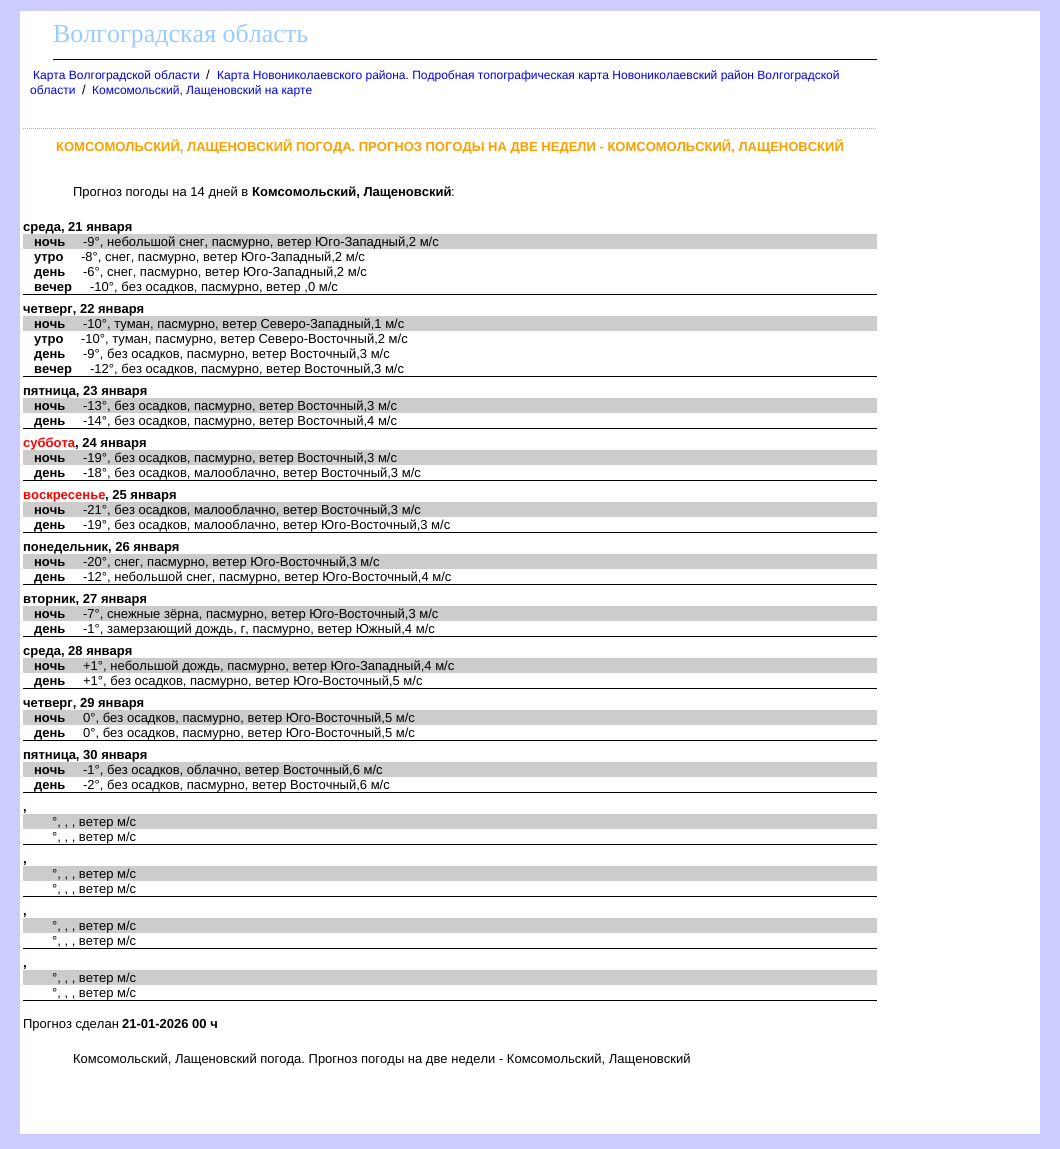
import math
import cairo


def draw(ctx):
	ctx.set_source_rgb(0.8, 0.8, 1)
	ctx.paint()
	ctx.set_source_rgb(1, 1, 1)
	ctx.rectangle(20, 11, 1020, 1123)
	ctx.fill()
	ctx.set_source_rgb(0, 0, 0)
	ctx.rectangle(53, 59, 824, 1)
	ctx.fill()
	ctx.select_font_face('Liberation Serif')
	ctx.set_font_size(26)
	ctx.set_source_rgb(0.6, 0.8, 1)
	ctx.move_to(53, 42)
	ctx.show_text('Волгоградская область')
	ctx.select_font_face('Liberation Sans')
	ctx.set_font_size(12)
	ctx.set_source_rgb(0, 0, 0.933)
	ctx.move_to(33, 79)
	ctx.show_text('Карта Волгоградской области')
	ctx.set_font_size(13)
	ctx.set_source_rgb(0, 0, 0)
	ctx.move_to(206, 79)
	ctx.show_text('/')
	ctx.set_font_size(12)
	ctx.set_source_rgb(0, 0, 0.933)
	ctx.move_to(217, 79)
	ctx.show_text('Карта Новониколаевского района. Подробная топографическая карта Новониколаевский район Волгоградской')
	ctx.move_to(30, 94)
	ctx.show_text('области')
	ctx.set_font_size(13)
	ctx.set_source_rgb(0, 0, 0)
	ctx.move_to(82, 94)
	ctx.show_text('/')
	ctx.set_font_size(12)
	ctx.set_source_rgb(0, 0, 0.933)
	ctx.move_to(92, 94)
	ctx.show_text('Комсомольский, Лащеновский на карте')
	ctx.new_path()
	ctx.move_to(23, 128.5)
	ctx.line_to(877, 128.5)
	ctx.set_source_rgb(1, 0.647, 0)
	ctx.set_line_width(1)
	ctx.set_dash([1, 1])
	ctx.stroke()
	ctx.select_font_face('Liberation Sans', cairo.FONT_SLANT_NORMAL, cairo.FONT_WEIGHT_BOLD)
	ctx.set_font_size(13)
	ctx.set_source_rgb(0.976, 0.627, 0)
	ctx.move_to(56, 151)
	ctx.show_text('КОМСОМОЛЬСКИЙ, ЛАЩЕНОВСКИЙ ПОГОДА. ПРОГНОЗ ПОГОДЫ НА ДВЕ НЕДЕЛИ - КОМСОМОЛЬСКИЙ, ЛАЩЕНОВСКИЙ')
	ctx.select_font_face('Liberation Sans')
	ctx.set_source_rgb(0, 0, 0)
	ctx.move_to(73, 196)
	ctx.show_text('Прогноз погоды на 14 дней в')
	ctx.select_font_face('Liberation Sans', cairo.FONT_SLANT_NORMAL, cairo.FONT_WEIGHT_BOLD)
	ctx.move_to(252, 196)
	ctx.show_text('Комсомольский, Лащеновский')
	ctx.select_font_face('Liberation Sans')
	ctx.move_to(451, 196)
	ctx.show_text(':')
	ctx.select_font_face('Liberation Sans', cairo.FONT_SLANT_NORMAL, cairo.FONT_WEIGHT_BOLD)
	ctx.move_to(23, 231)
	ctx.show_text('среда, 21 января')
	ctx.set_source_rgb(0.8, 0.8, 0.8)
	ctx.rectangle(23, 234, 854, 15)
	ctx.fill()
	ctx.set_source_rgb(0, 0, 0)
	ctx.move_to(34, 246)
	ctx.show_text('ночь')
	ctx.select_font_face('Liberation Sans')
	ctx.move_to(83, 246)
	ctx.show_text('-9°, небольшой снег, пасмурно, ветер Юго-Западный,2 м/с')
	ctx.select_font_face('Liberation Sans', cairo.FONT_SLANT_NORMAL, cairo.FONT_WEIGHT_BOLD)
	ctx.move_to(34, 261)
	ctx.show_text('утро')
	ctx.select_font_face('Liberation Sans')
	ctx.move_to(81, 261)
	ctx.show_text('-8°, снег, пасмурно, ветер Юго-Западный,2 м/с')
	ctx.select_font_face('Liberation Sans', cairo.FONT_SLANT_NORMAL, cairo.FONT_WEIGHT_BOLD)
	ctx.move_to(34, 276)
	ctx.show_text('день')
	ctx.select_font_face('Liberation Sans')
	ctx.move_to(83, 276)
	ctx.show_text('-6°, снег, пасмурно, ветер Юго-Западный,2 м/с')
	ctx.rectangle(23, 294, 854, 1)
	ctx.fill()
	ctx.select_font_face('Liberation Sans', cairo.FONT_SLANT_NORMAL, cairo.FONT_WEIGHT_BOLD)
	ctx.move_to(34, 291)
	ctx.show_text('вечер')
	ctx.select_font_face('Liberation Sans')
	ctx.move_to(90, 291)
	ctx.show_text('-10°, без осадков, пасмурно, ветер ,0 м/с')
	ctx.select_font_face('Liberation Sans', cairo.FONT_SLANT_NORMAL, cairo.FONT_WEIGHT_BOLD)
	ctx.move_to(23, 313)
	ctx.show_text('четверг, 22 января')
	ctx.set_source_rgb(0.8, 0.8, 0.8)
	ctx.rectangle(23, 316, 854, 15)
	ctx.fill()
	ctx.set_source_rgb(0, 0, 0)
	ctx.move_to(34, 328)
	ctx.show_text('ночь')
	ctx.select_font_face('Liberation Sans')
	ctx.move_to(83, 328)
	ctx.show_text('-10°, туман, пасмурно, ветер Северо-Западный,1 м/с')
	ctx.select_font_face('Liberation Sans', cairo.FONT_SLANT_NORMAL, cairo.FONT_WEIGHT_BOLD)
	ctx.move_to(34, 343)
	ctx.show_text('утро')
	ctx.select_font_face('Liberation Sans')
	ctx.move_to(81, 343)
	ctx.show_text('-10°, туман, пасмурно, ветер Северо-Восточный,2 м/с')
	ctx.select_font_face('Liberation Sans', cairo.FONT_SLANT_NORMAL, cairo.FONT_WEIGHT_BOLD)
	ctx.move_to(34, 358)
	ctx.show_text('день')
	ctx.select_font_face('Liberation Sans')
	ctx.move_to(83, 358)
	ctx.show_text('-9°, без осадков, пасмурно, ветер Восточный,3 м/с')
	ctx.rectangle(23, 376, 854, 1)
	ctx.fill()
	ctx.select_font_face('Liberation Sans', cairo.FONT_SLANT_NORMAL, cairo.FONT_WEIGHT_BOLD)
	ctx.move_to(34, 373)
	ctx.show_text('вечер')
	ctx.select_font_face('Liberation Sans')
	ctx.move_to(90, 373)
	ctx.show_text('-12°, без осадков, пасмурно, ветер Восточный,3 м/с')
	ctx.select_font_face('Liberation Sans', cairo.FONT_SLANT_NORMAL, cairo.FONT_WEIGHT_BOLD)
	ctx.move_to(23, 395)
	ctx.show_text('пятница, 23 января')
	ctx.set_source_rgb(0.8, 0.8, 0.8)
	ctx.rectangle(23, 398, 854, 15)
	ctx.fill()
	ctx.set_source_rgb(0, 0, 0)
	ctx.move_to(34, 410)
	ctx.show_text('ночь')
	ctx.select_font_face('Liberation Sans')
	ctx.move_to(83, 410)
	ctx.show_text('-13°, без осадков, пасмурно, ветер Восточный,3 м/с')
	ctx.rectangle(23, 428, 854, 1)
	ctx.fill()
	ctx.select_font_face('Liberation Sans', cairo.FONT_SLANT_NORMAL, cairo.FONT_WEIGHT_BOLD)
	ctx.move_to(34, 425)
	ctx.show_text('день')
	ctx.select_font_face('Liberation Sans')
	ctx.move_to(83, 425)
	ctx.show_text('-14°, без осадков, пасмурно, ветер Восточный,4 м/с')
	ctx.select_font_face('Liberation Sans', cairo.FONT_SLANT_NORMAL, cairo.FONT_WEIGHT_BOLD)
	ctx.set_source_rgb(1, 0, 0)
	ctx.move_to(23, 447)
	ctx.show_text('суббота')
	ctx.set_source_rgb(0, 0, 0)
	ctx.move_to(75, 447)
	ctx.show_text(', 24 января')
	ctx.set_source_rgb(0.8, 0.8, 0.8)
	ctx.rectangle(23, 450, 854, 15)
	ctx.fill()
	ctx.set_source_rgb(0, 0, 0)
	ctx.move_to(34, 462)
	ctx.show_text('ночь')
	ctx.select_font_face('Liberation Sans')
	ctx.move_to(83, 462)
	ctx.show_text('-19°, без осадков, пасмурно, ветер Восточный,3 м/с')
	ctx.rectangle(23, 480, 854, 1)
	ctx.fill()
	ctx.select_font_face('Liberation Sans', cairo.FONT_SLANT_NORMAL, cairo.FONT_WEIGHT_BOLD)
	ctx.move_to(34, 477)
	ctx.show_text('день')
	ctx.select_font_face('Liberation Sans')
	ctx.move_to(83, 477)
	ctx.show_text('-18°, без осадков, малооблачно, ветер Восточный,3 м/с')
	ctx.select_font_face('Liberation Sans', cairo.FONT_SLANT_NORMAL, cairo.FONT_WEIGHT_BOLD)
	ctx.set_source_rgb(1, 0, 0)
	ctx.move_to(23, 499)
	ctx.show_text('воскресенье')
	ctx.set_source_rgb(0, 0, 0)
	ctx.move_to(105, 499)
	ctx.show_text(', 25 января')
	ctx.set_source_rgb(0.8, 0.8, 0.8)
	ctx.rectangle(23, 502, 854, 15)
	ctx.fill()
	ctx.set_source_rgb(0, 0, 0)
	ctx.move_to(34, 514)
	ctx.show_text('ночь')
	ctx.select_font_face('Liberation Sans')
	ctx.move_to(83, 514)
	ctx.show_text('-21°, без осадков, малооблачно, ветер Восточный,3 м/с')
	ctx.rectangle(23, 532, 854, 1)
	ctx.fill()
	ctx.select_font_face('Liberation Sans', cairo.FONT_SLANT_NORMAL, cairo.FONT_WEIGHT_BOLD)
	ctx.move_to(34, 529)
	ctx.show_text('день')
	ctx.select_font_face('Liberation Sans')
	ctx.move_to(83, 529)
	ctx.show_text('-19°, без осадков, малооблачно, ветер Юго-Восточный,3 м/с')
	ctx.select_font_face('Liberation Sans', cairo.FONT_SLANT_NORMAL, cairo.FONT_WEIGHT_BOLD)
	ctx.move_to(23, 551)
	ctx.show_text('понедельник, 26 января')
	ctx.set_source_rgb(0.8, 0.8, 0.8)
	ctx.rectangle(23, 554, 854, 15)
	ctx.fill()
	ctx.set_source_rgb(0, 0, 0)
	ctx.move_to(34, 566)
	ctx.show_text('ночь')
	ctx.select_font_face('Liberation Sans')
	ctx.move_to(83, 566)
	ctx.show_text('-20°, снег, пасмурно, ветер Юго-Восточный,3 м/с')
	ctx.rectangle(23, 584, 854, 1)
	ctx.fill()
	ctx.select_font_face('Liberation Sans', cairo.FONT_SLANT_NORMAL, cairo.FONT_WEIGHT_BOLD)
	ctx.move_to(34, 581)
	ctx.show_text('день')
	ctx.select_font_face('Liberation Sans')
	ctx.move_to(83, 581)
	ctx.show_text('-12°, небольшой снег, пасмурно, ветер Юго-Восточный,4 м/с')
	ctx.select_font_face('Liberation Sans', cairo.FONT_SLANT_NORMAL, cairo.FONT_WEIGHT_BOLD)
	ctx.move_to(23, 603)
	ctx.show_text('вторник, 27 января')
	ctx.set_source_rgb(0.8, 0.8, 0.8)
	ctx.rectangle(23, 606, 854, 15)
	ctx.fill()
	ctx.set_source_rgb(0, 0, 0)
	ctx.move_to(34, 618)
	ctx.show_text('ночь')
	ctx.select_font_face('Liberation Sans')
	ctx.move_to(83, 618)
	ctx.show_text('-7°, снежные зёрна, пасмурно, ветер Юго-Восточный,3 м/с')
	ctx.rectangle(23, 636, 854, 1)
	ctx.fill()
	ctx.select_font_face('Liberation Sans', cairo.FONT_SLANT_NORMAL, cairo.FONT_WEIGHT_BOLD)
	ctx.move_to(34, 633)
	ctx.show_text('день')
	ctx.select_font_face('Liberation Sans')
	ctx.move_to(83, 633)
	ctx.show_text('-1°, замерзающий дождь, г, пасмурно, ветер Южный,4 м/с')
	ctx.select_font_face('Liberation Sans', cairo.FONT_SLANT_NORMAL, cairo.FONT_WEIGHT_BOLD)
	ctx.move_to(23, 655)
	ctx.show_text('среда, 28 января')
	ctx.set_source_rgb(0.8, 0.8, 0.8)
	ctx.rectangle(23, 658, 854, 15)
	ctx.fill()
	ctx.set_source_rgb(0, 0, 0)
	ctx.move_to(34, 670)
	ctx.show_text('ночь')
	ctx.select_font_face('Liberation Sans')
	ctx.move_to(83, 670)
	ctx.show_text('+1°, небольшой дождь, пасмурно, ветер Юго-Западный,4 м/с')
	ctx.rectangle(23, 688, 854, 1)
	ctx.fill()
	ctx.select_font_face('Liberation Sans', cairo.FONT_SLANT_NORMAL, cairo.FONT_WEIGHT_BOLD)
	ctx.move_to(34, 685)
	ctx.show_text('день')
	ctx.select_font_face('Liberation Sans')
	ctx.move_to(83, 685)
	ctx.show_text('+1°, без осадков, пасмурно, ветер Юго-Восточный,5 м/с')
	ctx.select_font_face('Liberation Sans', cairo.FONT_SLANT_NORMAL, cairo.FONT_WEIGHT_BOLD)
	ctx.move_to(23, 707)
	ctx.show_text('четверг, 29 января')
	ctx.set_source_rgb(0.8, 0.8, 0.8)
	ctx.rectangle(23, 710, 854, 15)
	ctx.fill()
	ctx.set_source_rgb(0, 0, 0)
	ctx.move_to(34, 722)
	ctx.show_text('ночь')
	ctx.select_font_face('Liberation Sans')
	ctx.move_to(83, 722)
	ctx.show_text('0°, без осадков, пасмурно, ветер Юго-Восточный,5 м/с')
	ctx.rectangle(23, 740, 854, 1)
	ctx.fill()
	ctx.select_font_face('Liberation Sans', cairo.FONT_SLANT_NORMAL, cairo.FONT_WEIGHT_BOLD)
	ctx.move_to(34, 737)
	ctx.show_text('день')
	ctx.select_font_face('Liberation Sans')
	ctx.move_to(83, 737)
	ctx.show_text('0°, без осадков, пасмурно, ветер Юго-Восточный,5 м/с')
	ctx.select_font_face('Liberation Sans', cairo.FONT_SLANT_NORMAL, cairo.FONT_WEIGHT_BOLD)
	ctx.move_to(23, 759)
	ctx.show_text('пятница, 30 января')
	ctx.set_source_rgb(0.8, 0.8, 0.8)
	ctx.rectangle(23, 762, 854, 15)
	ctx.fill()
	ctx.set_source_rgb(0, 0, 0)
	ctx.move_to(34, 774)
	ctx.show_text('ночь')
	ctx.select_font_face('Liberation Sans')
	ctx.move_to(83, 774)
	ctx.show_text('-1°, без осадков, облачно, ветер Восточный,6 м/с')
	ctx.rectangle(23, 792, 854, 1)
	ctx.fill()
	ctx.select_font_face('Liberation Sans', cairo.FONT_SLANT_NORMAL, cairo.FONT_WEIGHT_BOLD)
	ctx.move_to(34, 789)
	ctx.show_text('день')
	ctx.select_font_face('Liberation Sans')
	ctx.move_to(83, 789)
	ctx.show_text('-2°, без осадков, пасмурно, ветер Восточный,6 м/с')
	ctx.select_font_face('Liberation Sans', cairo.FONT_SLANT_NORMAL, cairo.FONT_WEIGHT_BOLD)
	ctx.move_to(23, 811)
	ctx.show_text(',')
	ctx.set_source_rgb(0.8, 0.8, 0.8)
	ctx.rectangle(23, 814, 854, 15)
	ctx.fill()
	ctx.select_font_face('Liberation Sans')
	ctx.set_source_rgb(0, 0, 0)
	ctx.move_to(52, 826)
	ctx.show_text('°, , , ветер м/с')
	ctx.rectangle(23, 844, 854, 1)
	ctx.fill()
	ctx.move_to(52, 841)
	ctx.show_text('°, , , ветер м/с')
	ctx.select_font_face('Liberation Sans', cairo.FONT_SLANT_NORMAL, cairo.FONT_WEIGHT_BOLD)
	ctx.move_to(23, 863)
	ctx.show_text(',')
	ctx.set_source_rgb(0.8, 0.8, 0.8)
	ctx.rectangle(23, 866, 854, 15)
	ctx.fill()
	ctx.select_font_face('Liberation Sans')
	ctx.set_source_rgb(0, 0, 0)
	ctx.move_to(52, 878)
	ctx.show_text('°, , , ветер м/с')
	ctx.rectangle(23, 896, 854, 1)
	ctx.fill()
	ctx.move_to(52, 893)
	ctx.show_text('°, , , ветер м/с')
	ctx.select_font_face('Liberation Sans', cairo.FONT_SLANT_NORMAL, cairo.FONT_WEIGHT_BOLD)
	ctx.move_to(23, 915)
	ctx.show_text(',')
	ctx.set_source_rgb(0.8, 0.8, 0.8)
	ctx.rectangle(23, 918, 854, 15)
	ctx.fill()
	ctx.select_font_face('Liberation Sans')
	ctx.set_source_rgb(0, 0, 0)
	ctx.move_to(52, 930)
	ctx.show_text('°, , , ветер м/с')
	ctx.rectangle(23, 948, 854, 1)
	ctx.fill()
	ctx.move_to(52, 945)
	ctx.show_text('°, , , ветер м/с')
	ctx.select_font_face('Liberation Sans', cairo.FONT_SLANT_NORMAL, cairo.FONT_WEIGHT_BOLD)
	ctx.move_to(23, 967)
	ctx.show_text(',')
	ctx.set_source_rgb(0.8, 0.8, 0.8)
	ctx.rectangle(23, 970, 854, 15)
	ctx.fill()
	ctx.select_font_face('Liberation Sans')
	ctx.set_source_rgb(0, 0, 0)
	ctx.move_to(52, 982)
	ctx.show_text('°, , , ветер м/с')
	ctx.rectangle(23, 1000, 854, 1)
	ctx.fill()
	ctx.move_to(52, 997)
	ctx.show_text('°, , , ветер м/с')
	ctx.move_to(23, 1028)
	ctx.show_text('Прогноз сделан')
	ctx.select_font_face('Liberation Sans', cairo.FONT_SLANT_NORMAL, cairo.FONT_WEIGHT_BOLD)
	ctx.move_to(122, 1028)
	ctx.show_text('21-01-2026 00 ч')
	ctx.select_font_face('Liberation Sans')
	ctx.move_to(73, 1063)
	ctx.show_text('Комсомольский, Лащеновский погода. Прогноз погоды на две недели - Комсомольский, Лащеновский')


surface = cairo.ImageSurface(cairo.FORMAT_RGB24, 1060, 1149)
ctx = cairo.Context(surface)
options = cairo.FontOptions()
options.set_hint_metrics(cairo.HINT_METRICS_OFF)
options.set_hint_style(cairo.HINT_STYLE_NONE)
ctx.set_font_options(options)
ctx.set_miter_limit(4)
draw(ctx)
surface.write_to_png('image.png')
